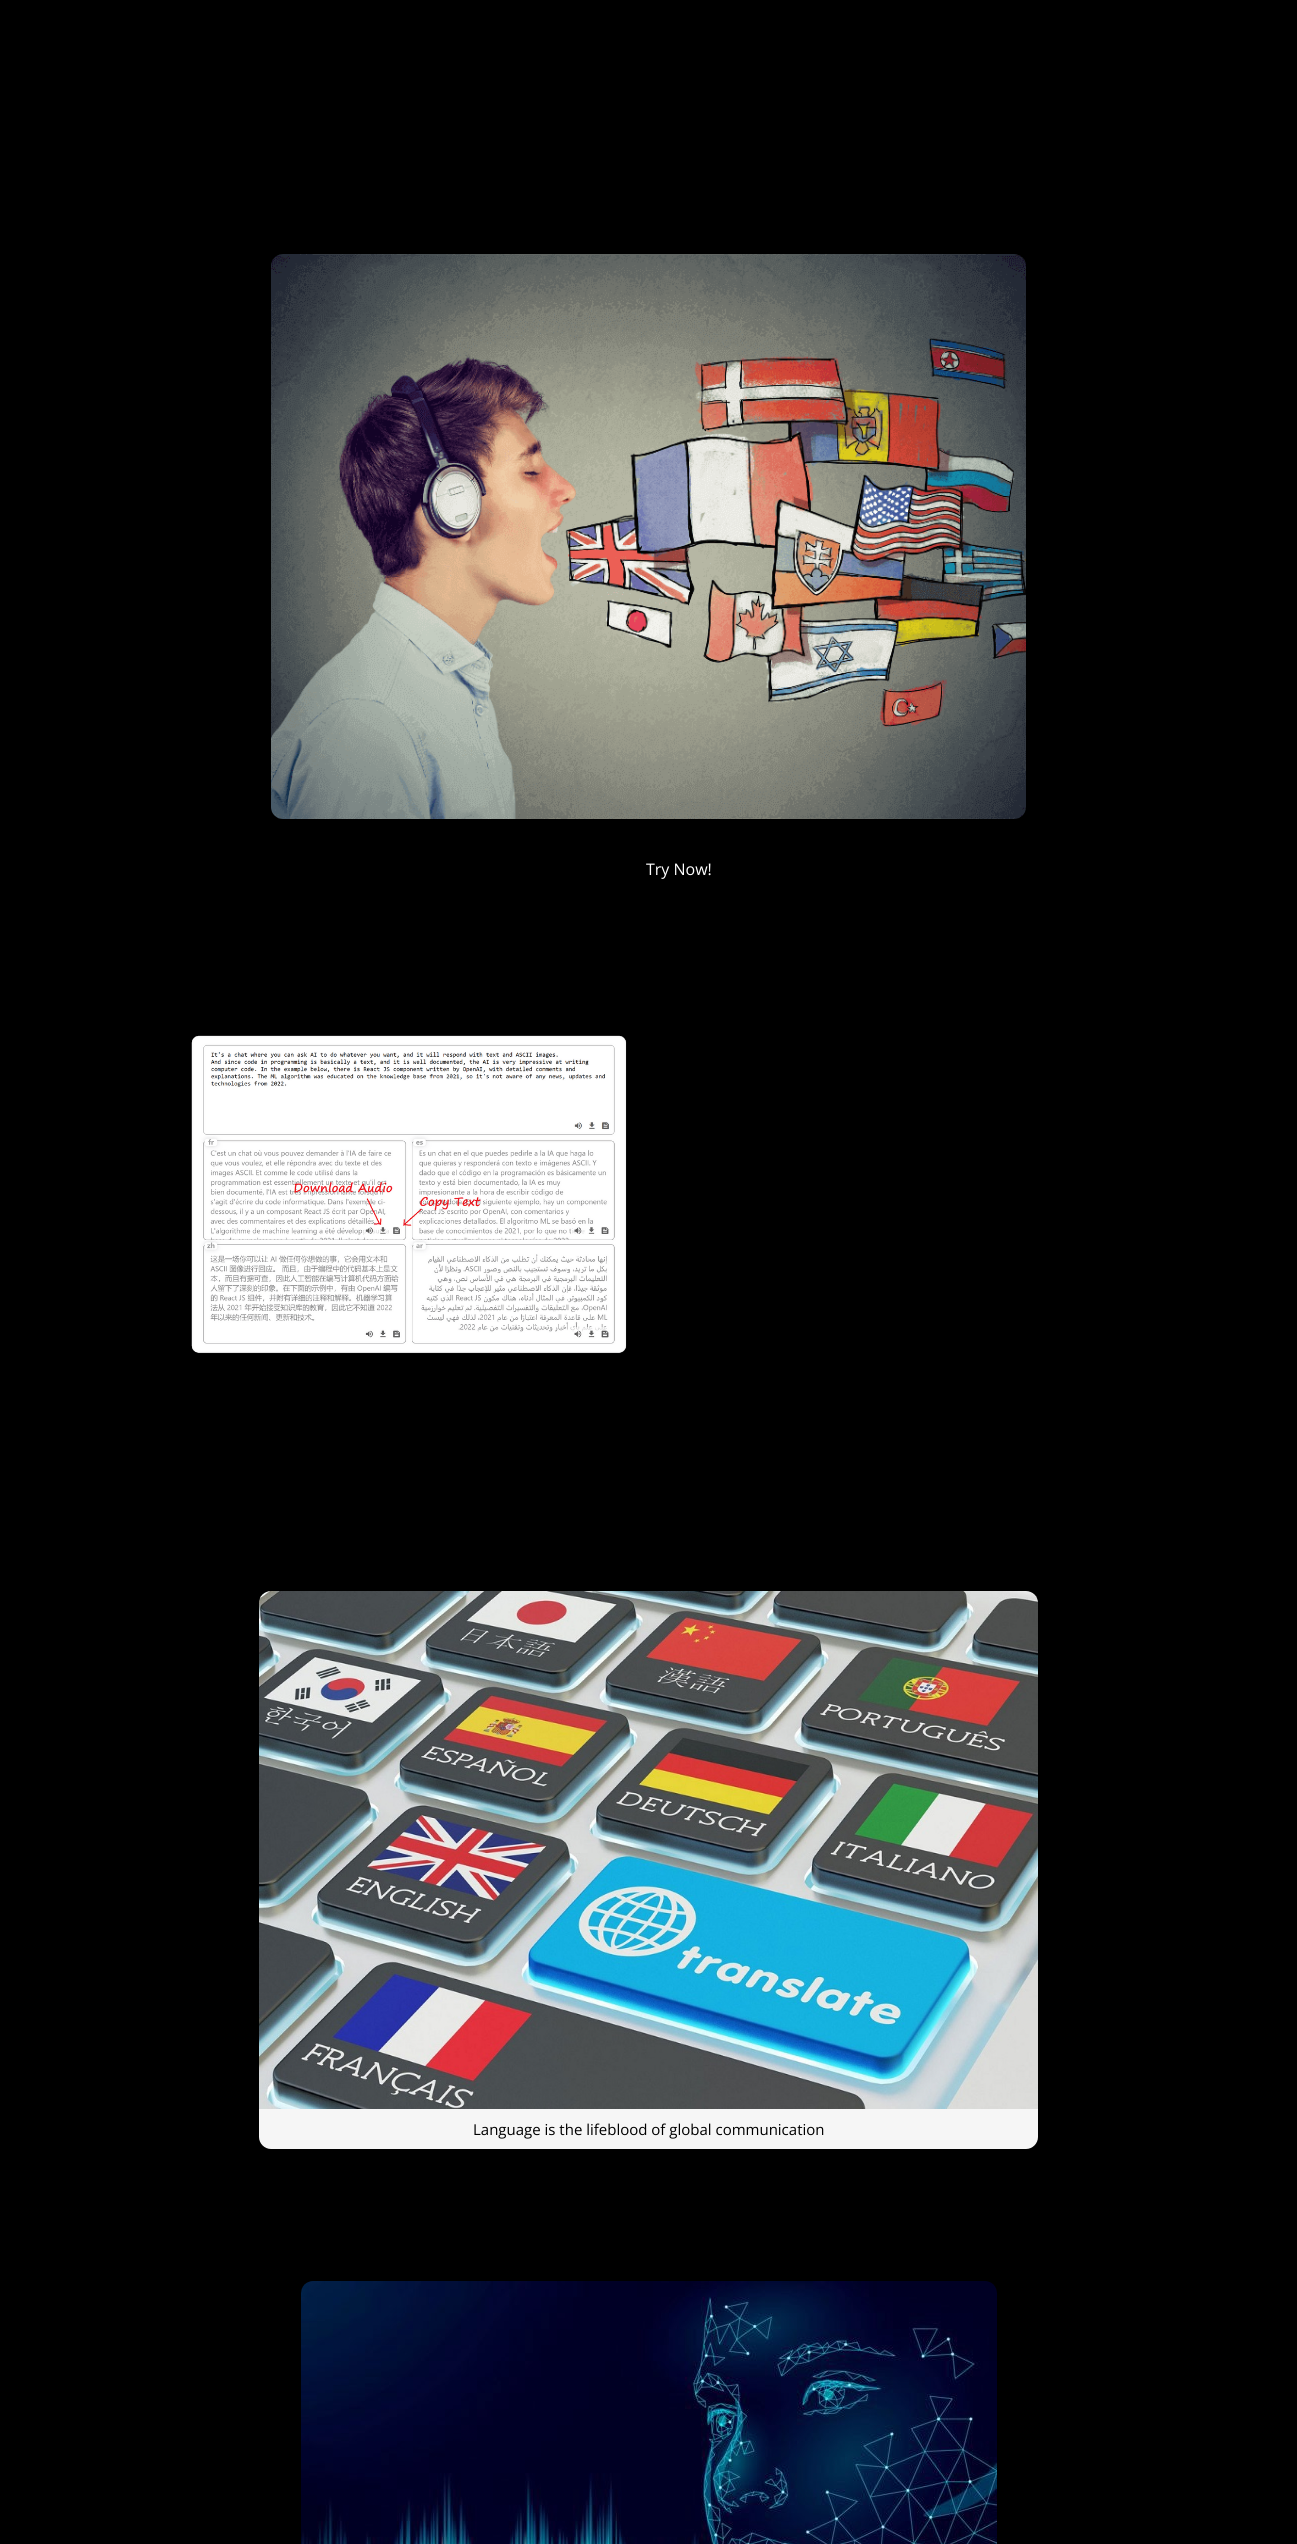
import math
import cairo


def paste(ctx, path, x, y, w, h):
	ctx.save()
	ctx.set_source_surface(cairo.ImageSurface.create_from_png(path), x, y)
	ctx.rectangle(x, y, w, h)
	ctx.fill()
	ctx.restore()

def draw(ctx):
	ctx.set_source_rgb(0, 0, 0)
	ctx.paint()
	paste(ctx, 'media/1.png', 271, 254, 755, 565)
	ctx.select_font_face('Open Sans')
	ctx.set_font_size(16)
	ctx.set_source_rgb(1, 1, 1)
	ctx.move_to(646, 875)
	ctx.show_text('Try Now!')
	paste(ctx, 'media/2.png', 191, 1035, 436, 319)
	paste(ctx, 'media/3.png', 259, 1591, 779, 518)
	ctx.set_source_rgb(0.961, 0.961, 0.961)
	ctx.new_path()
	ctx.move_to(259, 2109)
	ctx.line_to(1038, 2109)
	ctx.line_to(1038, 2137)
	ctx.curve_to(1038, 2143.5, 1032.5, 2149, 1026, 2149)
	ctx.line_to(271, 2149)
	ctx.curve_to(264.5, 2149, 259, 2143.5, 259, 2137)
	ctx.close_path()
	ctx.fill()
	ctx.set_font_size(15)
	ctx.set_source_rgb(0, 0, 0)
	ctx.move_to(473, 2135)
	ctx.show_text('Language is the lifeblood of global communication')
	paste(ctx, 'media/4.png', 301, 2281, 696, 263)


surface = cairo.ImageSurface(cairo.FORMAT_RGB24, 1297, 2544)
ctx = cairo.Context(surface)
options = cairo.FontOptions()
options.set_hint_metrics(cairo.HINT_METRICS_OFF)
options.set_hint_style(cairo.HINT_STYLE_NONE)
ctx.set_font_options(options)
ctx.set_miter_limit(4)
draw(ctx)
surface.write_to_png('image.png')
